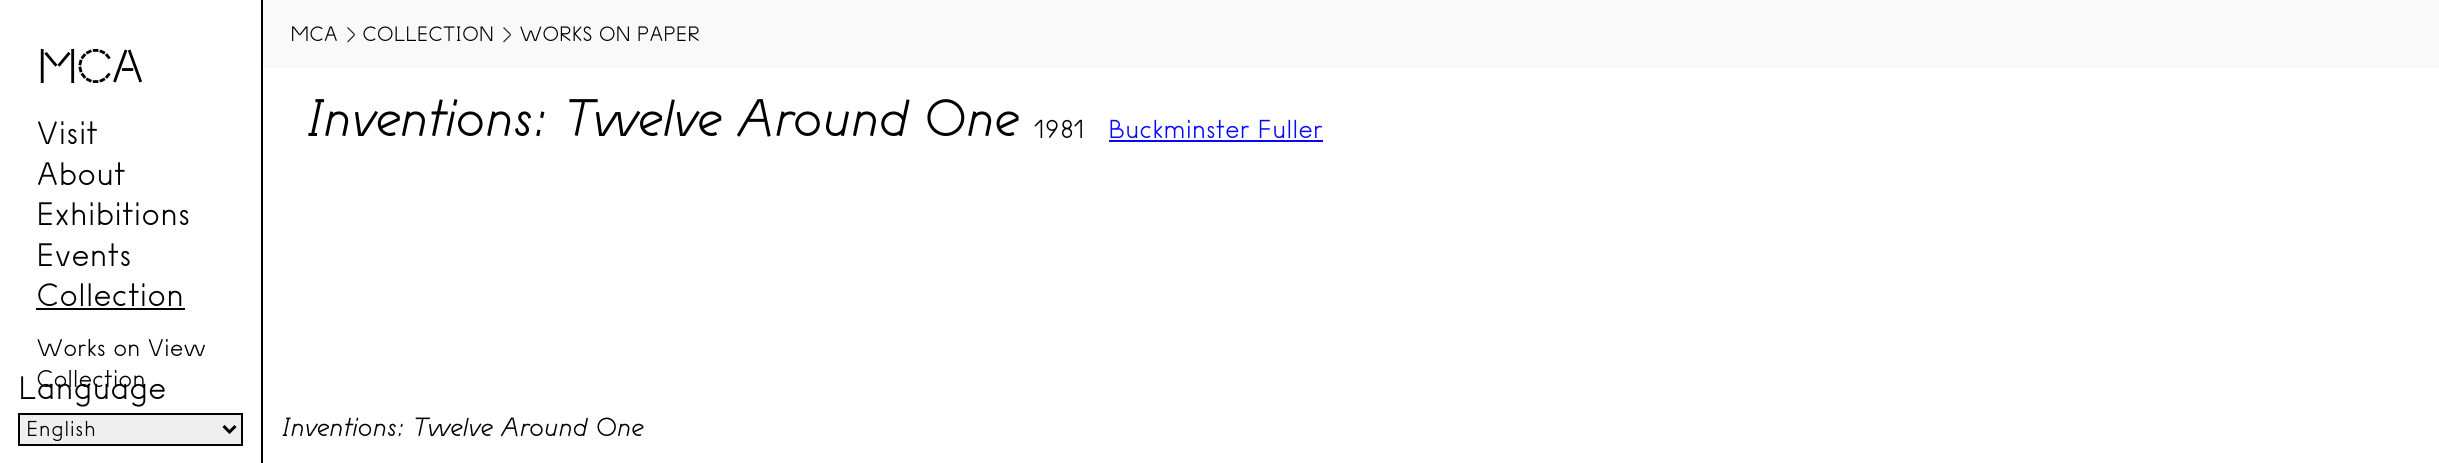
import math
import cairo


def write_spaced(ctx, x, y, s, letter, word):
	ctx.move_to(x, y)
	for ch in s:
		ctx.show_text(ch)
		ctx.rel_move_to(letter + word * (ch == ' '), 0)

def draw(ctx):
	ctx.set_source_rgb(1, 1, 1)
	ctx.paint()
	ctx.set_source_rgb(0, 0, 0)
	ctx.rectangle(261, 0, 2, 463)
	ctx.fill()
	ctx.select_font_face('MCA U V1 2')
	ctx.set_font_size(45)
	write_spaced(ctx, 36, 83, 'MCA', -4, 0)
	ctx.select_font_face('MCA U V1')
	ctx.set_font_size(30)
	for x, y, s in [
		(36, 144, 'Visit'),
		(36, 185, 'About'),
		(36, 225, 'Exhibitions'),
		(36, 266, 'Events'),
		(36, 306, 'Collection'),
	]:
		write_spaced(ctx, x, y, s, -0.6, 0)
	ctx.rectangle(36, 308, 149, 2)
	ctx.fill()
	ctx.set_font_size(22.5)
	write_spaced(ctx, 36, 356, 'Works on View', -0.6, 0)
	write_spaced(ctx, 36, 387, 'Collection', -0.6, 0)
	ctx.set_font_size(30)
	write_spaced(ctx, 18, 399, 'Language', -0.6, 0)
	ctx.set_source_rgb(0.937, 0.937, 0.937)
	ctx.rectangle(19, 414, 223, 31)
	ctx.fill_preserve()
	ctx.set_source_rgb(0, 0, 0)
	ctx.stroke()
	ctx.new_path()
	ctx.move_to(223.5, 426)
	ctx.line_to(229.5, 432)
	ctx.line_to(235.5, 426)
	ctx.set_line_width(3)
	ctx.stroke()
	ctx.set_font_size(20)
	ctx.move_to(26, 436)
	ctx.show_text('English')
	ctx.set_source_rgb(0.976, 0.976, 0.976)
	ctx.rectangle(263, 0, 2176, 68)
	ctx.fill()
	ctx.set_font_size(19.25)
	ctx.set_source_rgb(0, 0, 0)
	write_spaced(ctx, 290, 41, 'MCA', -0.6, 0)
	ctx.set_source_rgb(0.145, 0.145, 0.145)
	write_spaced(ctx, 345, 42, '>', -0.6, 0)
	ctx.set_source_rgb(0, 0, 0)
	write_spaced(ctx, 362, 41, 'COLLECTION', -0.6, 0)
	ctx.set_source_rgb(0.145, 0.145, 0.145)
	write_spaced(ctx, 501, 42, '>', -0.6, 0)
	ctx.set_source_rgb(0, 0, 0)
	write_spaced(ctx, 519, 41, 'WORKS ON PAPER', -0.6, 0)
	ctx.select_font_face('MCA U V1 Medium', cairo.FONT_SLANT_ITALIC)
	ctx.set_font_size(48)
	write_spaced(ctx, 305, 136, 'Inventions: Twelve Around One', -1.6, 0)
	ctx.select_font_face('MCA U V1')
	ctx.set_font_size(24)
	write_spaced(ctx, 1034, 138, '1981', -0.6, 0)
	ctx.set_source_rgb(0.031, 0.031, 1)
	write_spaced(ctx, 1108, 138, 'Buckminster Fuller', -0.6, 0)
	ctx.rectangle(1109, 140, 214, 2)
	ctx.fill()
	ctx.select_font_face('MCA U V1 Medium', cairo.FONT_SLANT_ITALIC)
	ctx.set_source_rgb(0, 0, 0)
	write_spaced(ctx, 281, 436, 'Inventions: Twelve Around One', -0.6, 0)


surface = cairo.ImageSurface(cairo.FORMAT_RGB24, 2439, 463)
ctx = cairo.Context(surface)
options = cairo.FontOptions()
options.set_hint_metrics(cairo.HINT_METRICS_OFF)
options.set_hint_style(cairo.HINT_STYLE_NONE)
ctx.set_font_options(options)
ctx.set_miter_limit(4)
draw(ctx)
surface.write_to_png('image.png')
